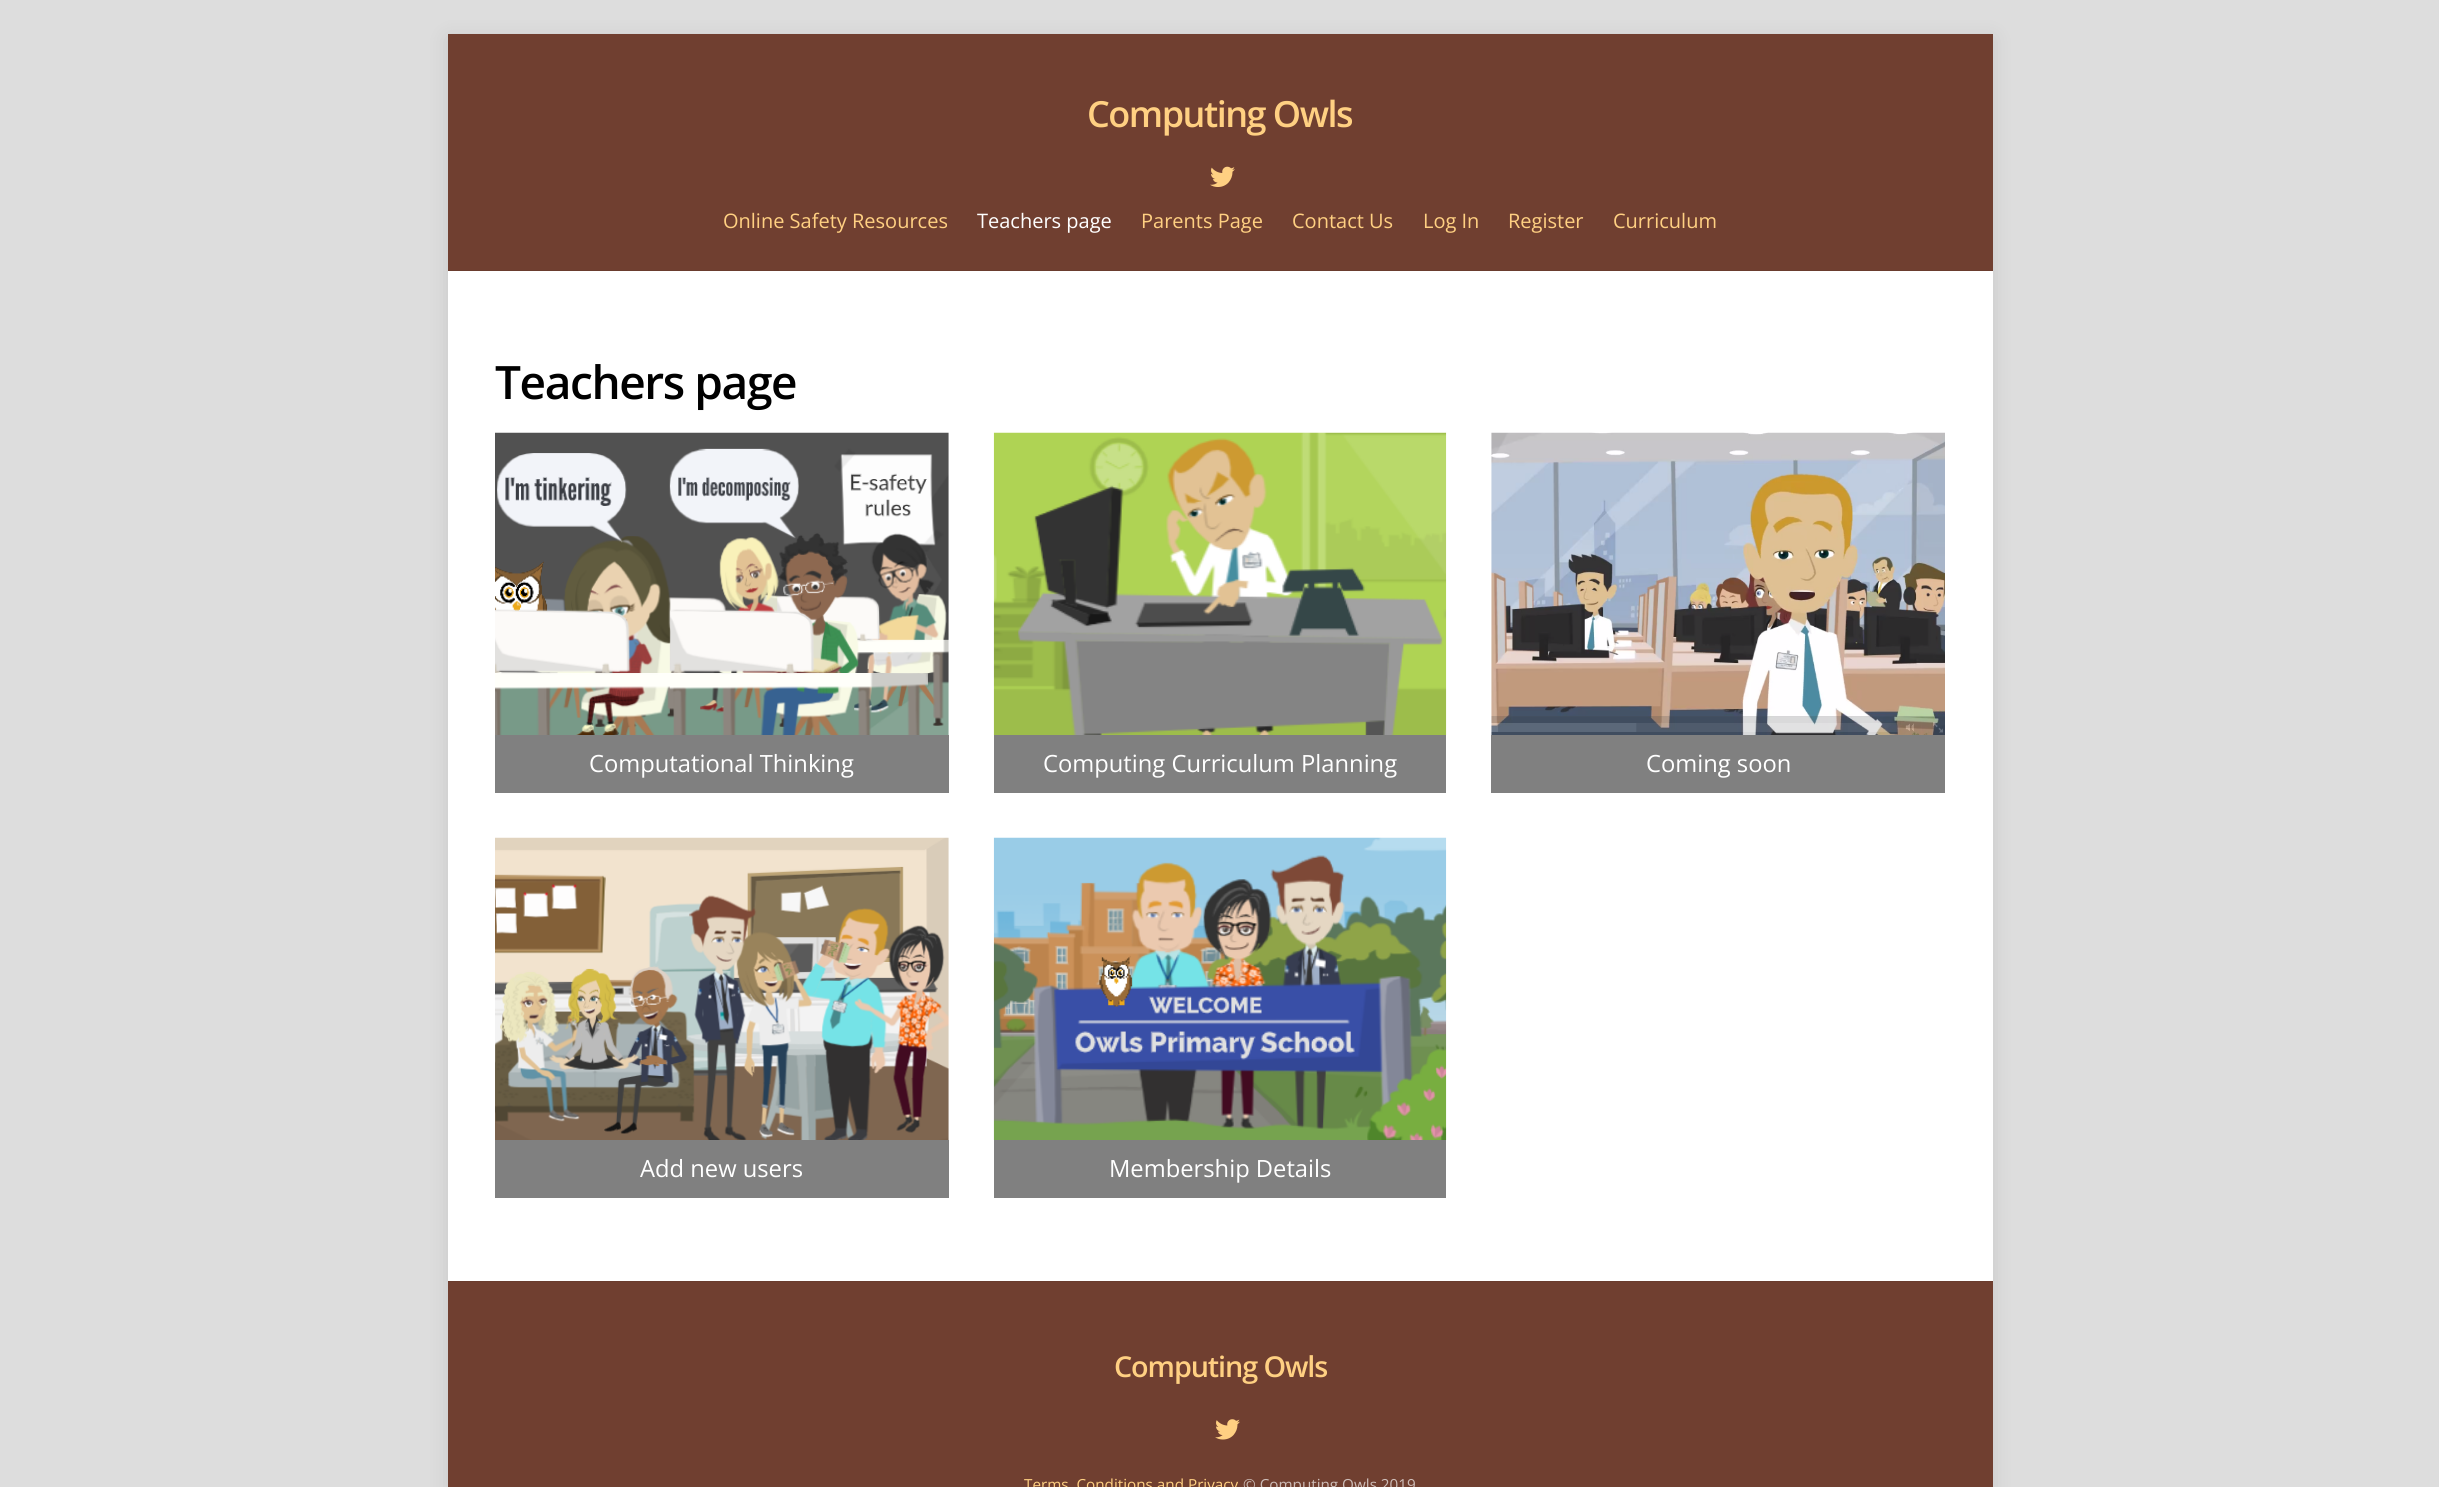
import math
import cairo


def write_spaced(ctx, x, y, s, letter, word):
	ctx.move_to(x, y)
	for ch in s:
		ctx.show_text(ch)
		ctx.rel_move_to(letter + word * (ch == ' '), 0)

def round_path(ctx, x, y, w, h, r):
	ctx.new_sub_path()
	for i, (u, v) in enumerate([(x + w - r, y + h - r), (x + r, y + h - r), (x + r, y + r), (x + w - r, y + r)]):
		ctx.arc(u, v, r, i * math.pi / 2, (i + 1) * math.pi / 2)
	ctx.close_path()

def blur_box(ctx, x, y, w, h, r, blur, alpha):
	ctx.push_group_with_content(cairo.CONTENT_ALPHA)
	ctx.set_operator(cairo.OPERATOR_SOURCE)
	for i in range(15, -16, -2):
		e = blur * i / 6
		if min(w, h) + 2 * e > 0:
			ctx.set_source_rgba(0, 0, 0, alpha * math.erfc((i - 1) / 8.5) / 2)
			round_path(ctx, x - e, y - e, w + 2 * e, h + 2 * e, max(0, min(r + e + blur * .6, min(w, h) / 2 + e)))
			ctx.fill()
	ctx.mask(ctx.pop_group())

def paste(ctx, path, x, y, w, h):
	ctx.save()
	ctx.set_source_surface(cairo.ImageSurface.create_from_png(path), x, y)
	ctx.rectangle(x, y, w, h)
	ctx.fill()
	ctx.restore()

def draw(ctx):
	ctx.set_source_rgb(0.867, 0.867, 0.867)
	ctx.paint()
	ctx.set_source_rgb(0, 0, 0)
	blur_box(ctx, 448, 38, 1545, 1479, 0, 10, 0.1)
	ctx.set_source_rgb(1, 1, 1)
	ctx.rectangle(448, 271, 1545, 1010)
	ctx.fill()
	ctx.set_source_rgb(0.439, 0.247, 0.188)
	ctx.rectangle(448, 34, 1545, 236)
	ctx.fill()
	ctx.set_source_rgb(0.416, 0.235, 0.18)
	ctx.rectangle(448, 270, 1545, 1)
	ctx.fill()
	ctx.select_font_face('Open Sans SemiBold')
	ctx.set_font_size(36)
	ctx.set_source_rgb(1, 0.816, 0.51)
	write_spaced(ctx, 1087, 127, 'Computing Owls', -1.5, 0)
	paste(ctx, 'media/1.png', 1210, 166, 25, 21)
	ctx.select_font_face('Open Sans')
	ctx.set_font_size(20)
	ctx.move_to(723, 228)
	ctx.show_text('Online Safety Resources')
	ctx.set_source_rgb(1, 1, 1)
	ctx.move_to(977, 228)
	ctx.show_text('Teachers page')
	ctx.set_source_rgb(1, 0.816, 0.51)
	for x, y, s in [
		(1141, 228, 'Parents Page'),
		(1292, 228, 'Contact Us'),
		(1423, 228, 'Log In'),
		(1508, 228, 'Register'),
		(1613, 228, 'Curriculum'),
	]:
		ctx.move_to(x, y)
		ctx.show_text(s)
	ctx.select_font_face('Open Sans SemiBold')
	ctx.set_font_size(46)
	ctx.set_source_rgb(0, 0, 0)
	write_spaced(ctx, 495, 399, 'Teachers page', -1.4, 0)
	paste(ctx, 'media/2.png', 495, 432, 454, 303)
	ctx.set_source_rgb(0.502, 0.502, 0.502)
	ctx.rectangle(495, 735, 454, 58)
	ctx.fill()
	ctx.select_font_face('Open Sans')
	ctx.set_font_size(23.75)
	ctx.set_source_rgb(1, 1, 1)
	ctx.move_to(589, 772)
	ctx.show_text('Computational Thinking')
	paste(ctx, 'media/3.png', 993, 432, 454, 303)
	ctx.set_source_rgb(0.502, 0.502, 0.502)
	ctx.rectangle(994, 735, 452, 58)
	ctx.fill()
	ctx.set_source_rgb(1, 1, 1)
	ctx.move_to(1043, 772)
	ctx.show_text('Computing Curriculum Planning')
	paste(ctx, 'media/4.png', 1491, 432, 454, 303)
	ctx.set_source_rgb(0.502, 0.502, 0.502)
	ctx.rectangle(1491, 735, 454, 58)
	ctx.fill()
	ctx.set_source_rgb(1, 1, 1)
	ctx.move_to(1646, 772)
	ctx.show_text('Coming soon')
	paste(ctx, 'media/5.png', 495, 837, 454, 303)
	ctx.set_source_rgb(0.502, 0.502, 0.502)
	ctx.rectangle(495, 1140, 454, 58)
	ctx.fill()
	ctx.set_source_rgb(1, 1, 1)
	ctx.move_to(640, 1177)
	ctx.show_text('Add new users')
	paste(ctx, 'media/6.png', 993, 837, 454, 303)
	ctx.set_source_rgb(0.502, 0.502, 0.502)
	ctx.rectangle(994, 1140, 452, 58)
	ctx.fill()
	ctx.set_source_rgb(1, 1, 1)
	ctx.move_to(1109, 1177)
	ctx.show_text('Membership Details')
	ctx.set_source_rgb(0.439, 0.247, 0.188)
	ctx.rectangle(448, 1282, 1545, 205)
	ctx.fill()
	ctx.set_source_rgb(0.416, 0.235, 0.18)
	ctx.rectangle(448, 1281, 1545, 1)
	ctx.fill()
	ctx.select_font_face('Open Sans SemiBold')
	ctx.set_font_size(28.75)
	ctx.set_source_rgb(1, 0.816, 0.51)
	write_spaced(ctx, 1114, 1377, 'Computing Owls', -1.1, 0)
	paste(ctx, 'media/7.png', 1215, 1419, 25, 21)
	ctx.select_font_face('Open Sans')
	ctx.set_font_size(15.25)
	ctx.move_to(1024, 1490)
	ctx.show_text('Terms, Conditions and Privacy')
	ctx.set_source_rgb(0.804, 0.737, 0.718)
	ctx.move_to(1243, 1490)
	ctx.show_text('© Computing Owls 2019')


surface = cairo.ImageSurface(cairo.FORMAT_RGB24, 2439, 1487)
ctx = cairo.Context(surface)
options = cairo.FontOptions()
options.set_hint_metrics(cairo.HINT_METRICS_OFF)
options.set_hint_style(cairo.HINT_STYLE_NONE)
ctx.set_font_options(options)
ctx.set_miter_limit(4)
draw(ctx)
surface.write_to_png('image.png')
